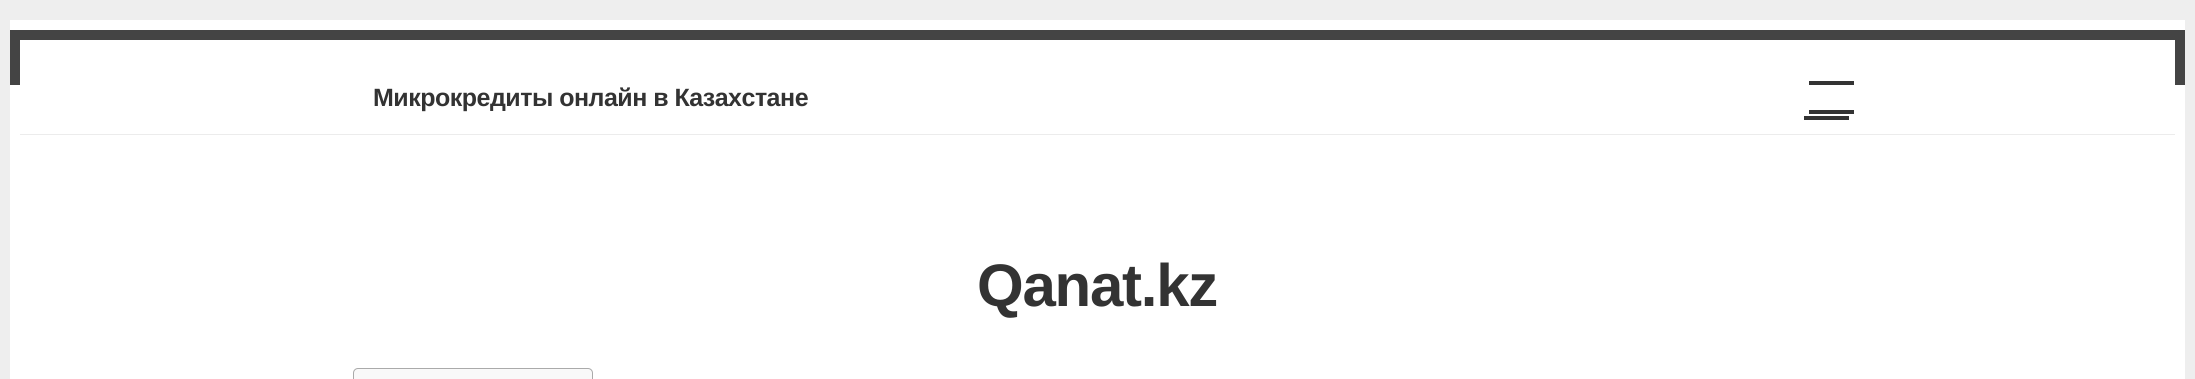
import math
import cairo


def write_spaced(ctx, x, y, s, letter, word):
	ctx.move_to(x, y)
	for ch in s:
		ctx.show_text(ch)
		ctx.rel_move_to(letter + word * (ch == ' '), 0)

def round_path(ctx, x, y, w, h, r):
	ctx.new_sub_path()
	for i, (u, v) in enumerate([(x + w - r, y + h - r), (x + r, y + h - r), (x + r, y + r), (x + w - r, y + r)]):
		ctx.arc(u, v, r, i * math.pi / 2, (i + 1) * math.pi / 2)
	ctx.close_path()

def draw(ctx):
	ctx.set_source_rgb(0.933, 0.933, 0.933)
	ctx.paint()
	ctx.set_source_rgb(1, 1, 1)
	ctx.rectangle(10, 20, 2175, 359)
	ctx.fill()
	ctx.set_source_rgb(0.267, 0.267, 0.267)
	ctx.rectangle(10, 30, 2175, 55)
	ctx.fill()
	ctx.set_source_rgb(0.922, 0.922, 0.922)
	ctx.rectangle(20, 134, 2155, 1)
	ctx.fill()
	ctx.set_source_rgb(1, 1, 1)
	ctx.rectangle(20, 40, 2155, 45)
	ctx.fill()
	ctx.select_font_face('Liberation Sans', cairo.FONT_SLANT_NORMAL, cairo.FONT_WEIGHT_BOLD)
	ctx.set_font_size(25)
	ctx.set_source_rgb(0.2, 0.2, 0.2)
	write_spaced(ctx, 373, 106, 'Микрокредиты онлайн в Казахстане', -0.5, 0)
	ctx.rectangle(1804, 116, 45, 4)
	ctx.rectangle(1809, 81, 45, 4)
	ctx.rectangle(1809, 110, 45, 4)
	ctx.fill()
	ctx.set_font_size(60)
	write_spaced(ctx, 977, 306, 'Qanat.kz', -1.25, 0)
	ctx.set_source_rgb(0.976, 0.976, 0.976)
	round_path(ctx, 353.5, 368.5, 239, 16, 4.5)
	ctx.fill_preserve()
	ctx.set_source_rgb(0.667, 0.667, 0.667)
	ctx.set_line_width(1)
	ctx.stroke()


surface = cairo.ImageSurface(cairo.FORMAT_RGB24, 2195, 379)
ctx = cairo.Context(surface)
options = cairo.FontOptions()
options.set_hint_metrics(cairo.HINT_METRICS_OFF)
options.set_hint_style(cairo.HINT_STYLE_NONE)
ctx.set_font_options(options)
ctx.set_miter_limit(4)
draw(ctx)
surface.write_to_png('image.png')
